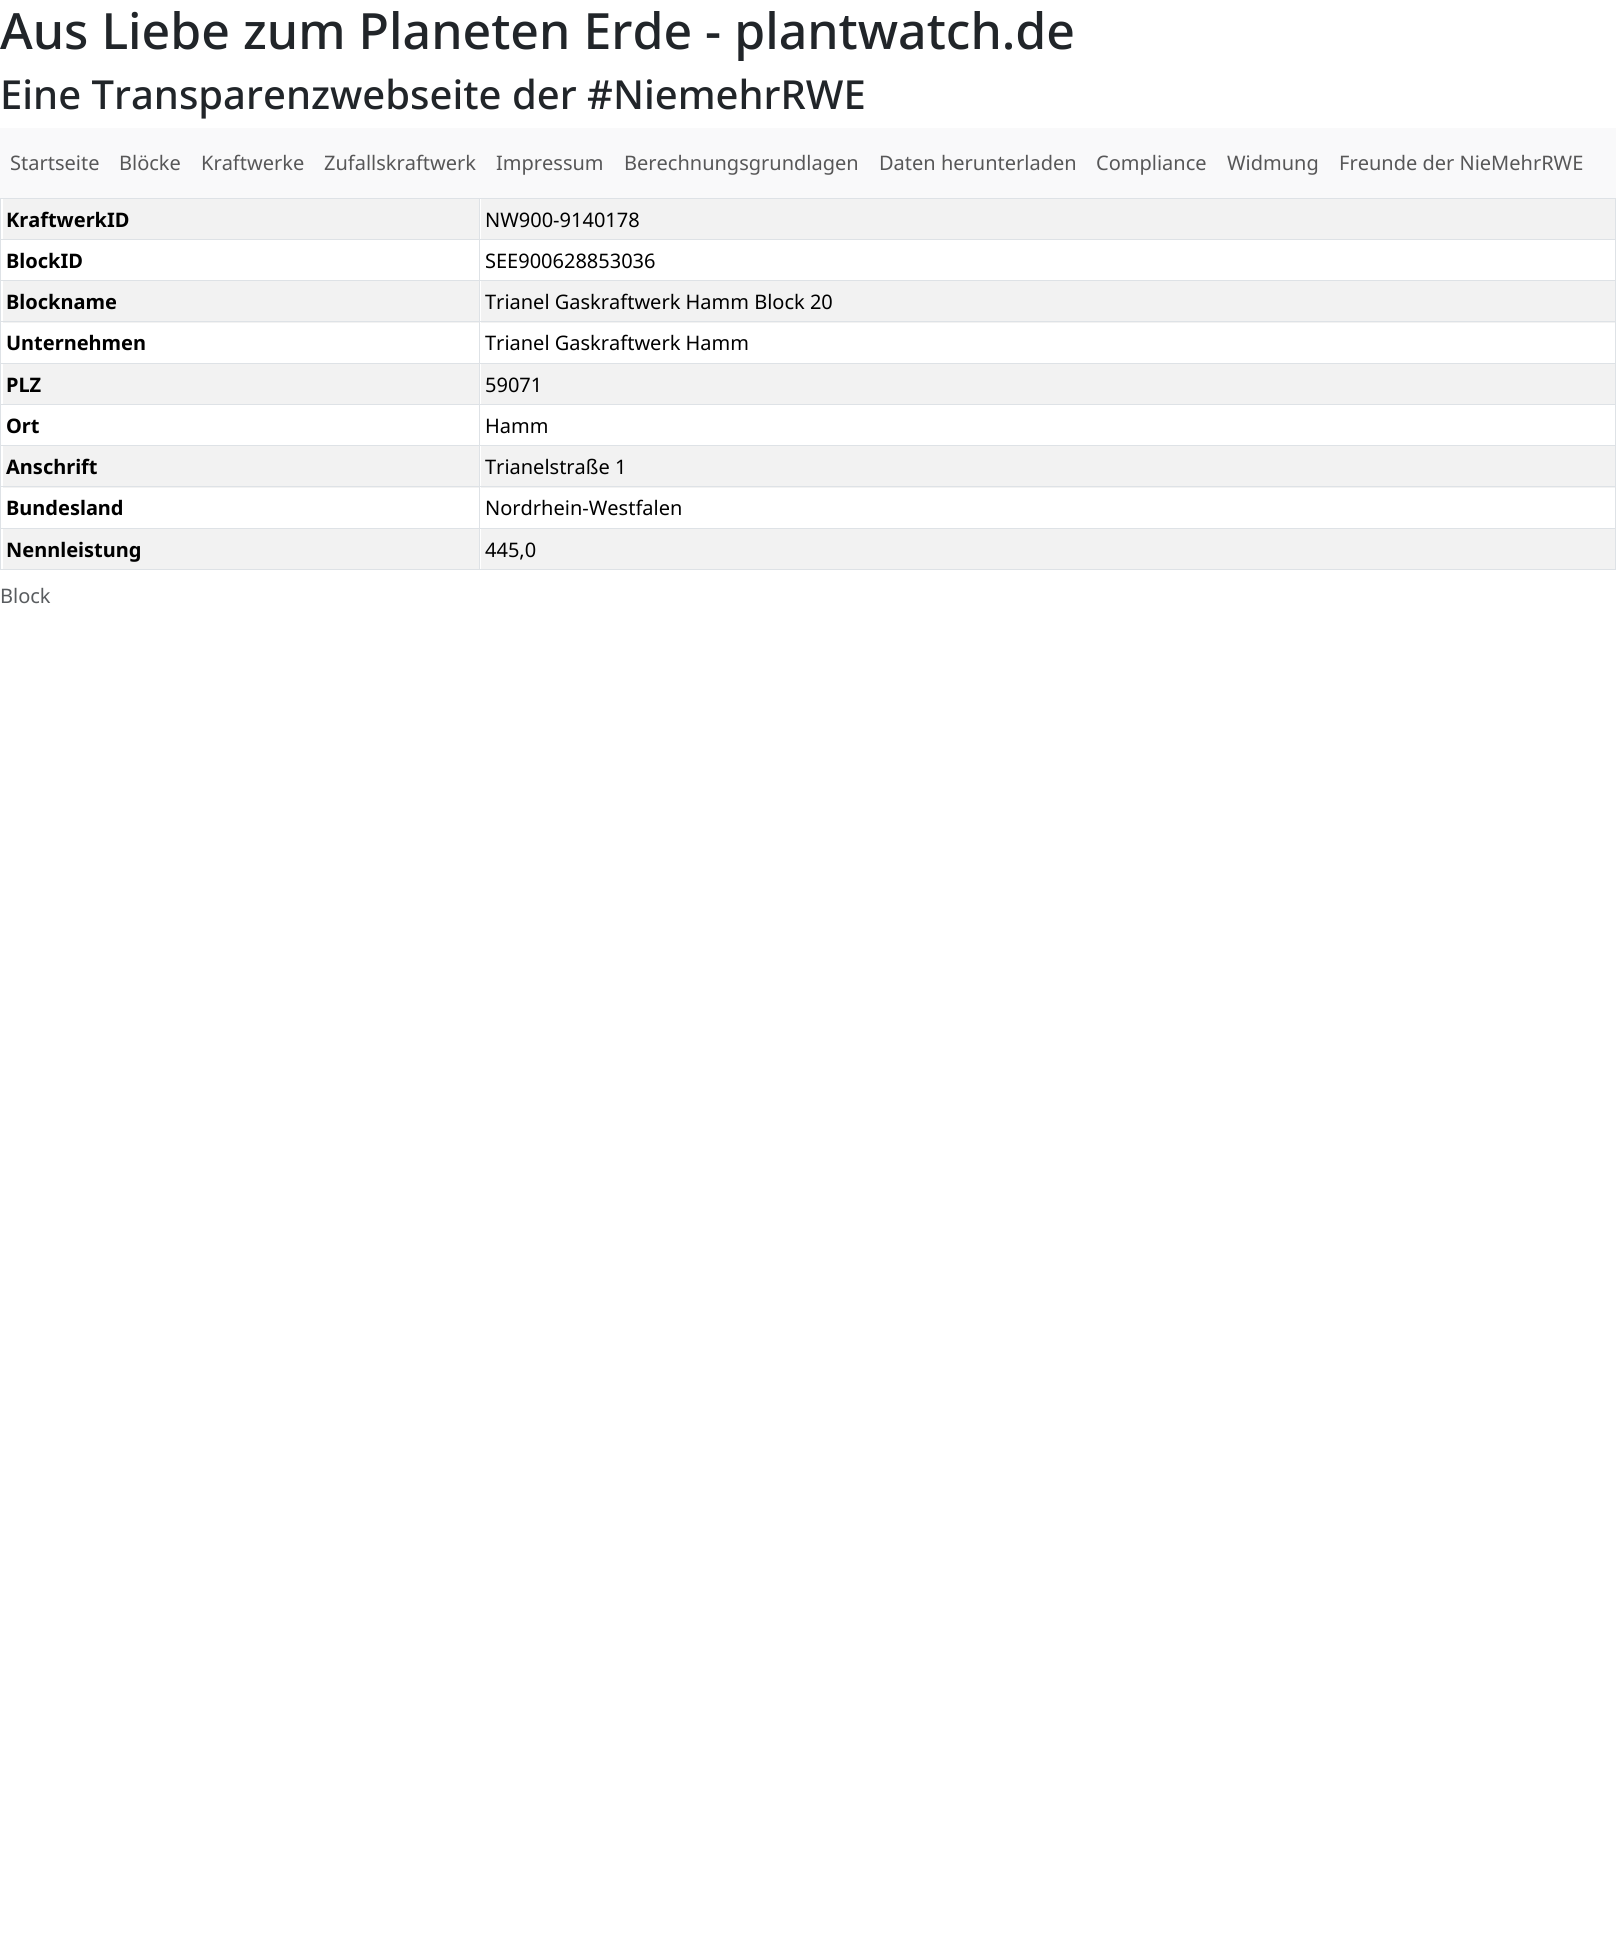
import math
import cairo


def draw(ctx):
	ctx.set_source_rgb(1, 1, 1)
	ctx.paint()
	ctx.select_font_face('Noto Sans Medium')
	ctx.set_font_size(50)
	ctx.set_source_rgb(0.129, 0.145, 0.161)
	ctx.move_to(0, 49)
	ctx.show_text('Aus Liebe zum Planeten Erde - plantwatch.de')
	ctx.set_font_size(40)
	ctx.move_to(0, 109)
	ctx.show_text('Eine Transparenzwebseite der #NiemehrRWE')
	ctx.set_source_rgb(0.973, 0.976, 0.98)
	ctx.rectangle(0, 128, 1616, 70)
	ctx.fill()
	ctx.select_font_face('Noto Sans')
	ctx.set_font_size(20)
	ctx.set_source_rgb(0.341, 0.341, 0.345)
	for x, y, s in [
		(10, 170, 'Startseite'),
		(119, 170, 'Blöcke'),
		(201, 170, 'Kraftwerke'),
		(324, 170, 'Zufallskraftwerk'),
		(496, 170, 'Impressum'),
		(624, 170, 'Berechnungsgrundlagen'),
		(879, 170, 'Daten herunterladen'),
		(1096, 170, 'Compliance'),
		(1227, 170, 'Widmung'),
		(1339, 170, 'Freunde der NieMehrRWE'),
	]:
		ctx.move_to(x, y)
		ctx.show_text(s)
	ctx.set_source_rgb(0.871, 0.886, 0.902)
	ctx.rectangle(0, 198, 1616, 1)
	ctx.fill()
	ctx.set_source_rgb(0.949, 0.949, 0.949)
	ctx.rectangle(3, 199, 476, 40)
	ctx.fill()
	ctx.select_font_face('Noto Sans', cairo.FONT_SLANT_NORMAL, cairo.FONT_WEIGHT_BOLD)
	ctx.set_source_rgb(0, 0, 0)
	ctx.move_to(6, 227)
	ctx.show_text('KraftwerkID')
	ctx.set_source_rgb(0.949, 0.949, 0.949)
	ctx.rectangle(481, 199, 1134, 40)
	ctx.fill()
	ctx.select_font_face('Noto Sans')
	ctx.set_source_rgb(0, 0, 0)
	ctx.move_to(485, 227)
	ctx.show_text('NW900-9140178')
	ctx.set_source_rgb(0.871, 0.886, 0.902)
	ctx.rectangle(0, 239, 1616, 1)
	ctx.fill()
	ctx.select_font_face('Noto Sans', cairo.FONT_SLANT_NORMAL, cairo.FONT_WEIGHT_BOLD)
	ctx.set_source_rgb(0, 0, 0)
	ctx.move_to(6, 268)
	ctx.show_text('BlockID')
	ctx.select_font_face('Noto Sans')
	ctx.move_to(485, 268)
	ctx.show_text('SEE900628853036')
	ctx.set_source_rgb(0.871, 0.886, 0.902)
	ctx.rectangle(0, 280, 1616, 1)
	ctx.fill()
	ctx.set_source_rgb(0.949, 0.949, 0.949)
	ctx.rectangle(3, 281, 476, 42)
	ctx.fill()
	ctx.select_font_face('Noto Sans', cairo.FONT_SLANT_NORMAL, cairo.FONT_WEIGHT_BOLD)
	ctx.set_source_rgb(0, 0, 0)
	ctx.move_to(6, 309)
	ctx.show_text('Blockname')
	ctx.set_source_rgb(0.949, 0.949, 0.949)
	ctx.rectangle(481, 281, 1134, 42)
	ctx.fill()
	ctx.select_font_face('Noto Sans')
	ctx.set_source_rgb(0, 0, 0)
	ctx.move_to(485, 309)
	ctx.show_text('Trianel Gaskraftwerk Hamm Block 20')
	ctx.set_source_rgb(0.871, 0.886, 0.902)
	ctx.rectangle(0, 321, 1616, 1)
	ctx.fill()
	ctx.select_font_face('Noto Sans', cairo.FONT_SLANT_NORMAL, cairo.FONT_WEIGHT_BOLD)
	ctx.set_source_rgb(0, 0, 0)
	ctx.move_to(6, 350)
	ctx.show_text('Unternehmen')
	ctx.select_font_face('Noto Sans')
	ctx.move_to(485, 350)
	ctx.show_text('Trianel Gaskraftwerk Hamm')
	ctx.set_source_rgb(0.871, 0.886, 0.902)
	ctx.rectangle(0, 363, 1616, 1)
	ctx.fill()
	ctx.set_source_rgb(0.949, 0.949, 0.949)
	ctx.rectangle(3, 364, 476, 40)
	ctx.fill()
	ctx.select_font_face('Noto Sans', cairo.FONT_SLANT_NORMAL, cairo.FONT_WEIGHT_BOLD)
	ctx.set_source_rgb(0, 0, 0)
	ctx.move_to(6, 392)
	ctx.show_text('PLZ')
	ctx.set_source_rgb(0.949, 0.949, 0.949)
	ctx.rectangle(481, 364, 1134, 40)
	ctx.fill()
	ctx.select_font_face('Noto Sans')
	ctx.set_source_rgb(0, 0, 0)
	ctx.move_to(485, 392)
	ctx.show_text('59071')
	ctx.set_source_rgb(0.871, 0.886, 0.902)
	ctx.rectangle(0, 404, 1616, 1)
	ctx.fill()
	ctx.select_font_face('Noto Sans', cairo.FONT_SLANT_NORMAL, cairo.FONT_WEIGHT_BOLD)
	ctx.set_source_rgb(0, 0, 0)
	ctx.move_to(6, 433)
	ctx.show_text('Ort')
	ctx.select_font_face('Noto Sans')
	ctx.move_to(485, 433)
	ctx.show_text('Hamm')
	ctx.set_source_rgb(0.871, 0.886, 0.902)
	ctx.rectangle(0, 445, 1616, 1)
	ctx.fill()
	ctx.set_source_rgb(0.949, 0.949, 0.949)
	ctx.rectangle(3, 446, 476, 42)
	ctx.fill()
	ctx.select_font_face('Noto Sans', cairo.FONT_SLANT_NORMAL, cairo.FONT_WEIGHT_BOLD)
	ctx.set_source_rgb(0, 0, 0)
	ctx.move_to(6, 474)
	ctx.show_text('Anschrift')
	ctx.set_source_rgb(0.949, 0.949, 0.949)
	ctx.rectangle(481, 446, 1134, 42)
	ctx.fill()
	ctx.select_font_face('Noto Sans')
	ctx.set_source_rgb(0, 0, 0)
	ctx.move_to(485, 474)
	ctx.show_text('Trianelstraße 1')
	ctx.set_source_rgb(0.871, 0.886, 0.902)
	ctx.rectangle(0, 486, 1616, 1)
	ctx.fill()
	ctx.select_font_face('Noto Sans', cairo.FONT_SLANT_NORMAL, cairo.FONT_WEIGHT_BOLD)
	ctx.set_source_rgb(0, 0, 0)
	ctx.move_to(6, 515)
	ctx.show_text('Bundesland')
	ctx.select_font_face('Noto Sans')
	ctx.move_to(485, 515)
	ctx.show_text('Nordrhein-Westfalen')
	ctx.set_source_rgb(0.871, 0.886, 0.902)
	ctx.rectangle(0, 528, 1616, 1)
	ctx.rectangle(0, 569, 1616, 1)
	ctx.fill()
	ctx.set_source_rgb(0.949, 0.949, 0.949)
	ctx.rectangle(3, 529, 476, 40)
	ctx.fill()
	ctx.set_source_rgb(0.871, 0.886, 0.902)
	ctx.rectangle(0, 198, 1, 372)
	ctx.fill()
	ctx.select_font_face('Noto Sans', cairo.FONT_SLANT_NORMAL, cairo.FONT_WEIGHT_BOLD)
	ctx.set_source_rgb(0, 0, 0)
	ctx.move_to(6, 557)
	ctx.show_text('Nennleistung')
	ctx.set_source_rgb(0.949, 0.949, 0.949)
	ctx.rectangle(481, 529, 1134, 40)
	ctx.fill()
	ctx.set_source_rgb(0.871, 0.886, 0.902)
	ctx.rectangle(1615, 198, 1, 372)
	ctx.rectangle(479, 198, 1, 372)
	ctx.fill()
	ctx.select_font_face('Noto Sans')
	ctx.set_source_rgb(0, 0, 0)
	ctx.move_to(485, 557)
	ctx.show_text('445,0')
	ctx.set_source_rgb(0.349, 0.361, 0.373)
	ctx.move_to(0, 603)
	ctx.show_text('Block')


surface = cairo.ImageSurface(cairo.FORMAT_RGB24, 1616, 1955)
ctx = cairo.Context(surface)
options = cairo.FontOptions()
options.set_hint_metrics(cairo.HINT_METRICS_OFF)
options.set_hint_style(cairo.HINT_STYLE_NONE)
ctx.set_font_options(options)
ctx.set_miter_limit(4)
draw(ctx)
surface.write_to_png('image.png')
